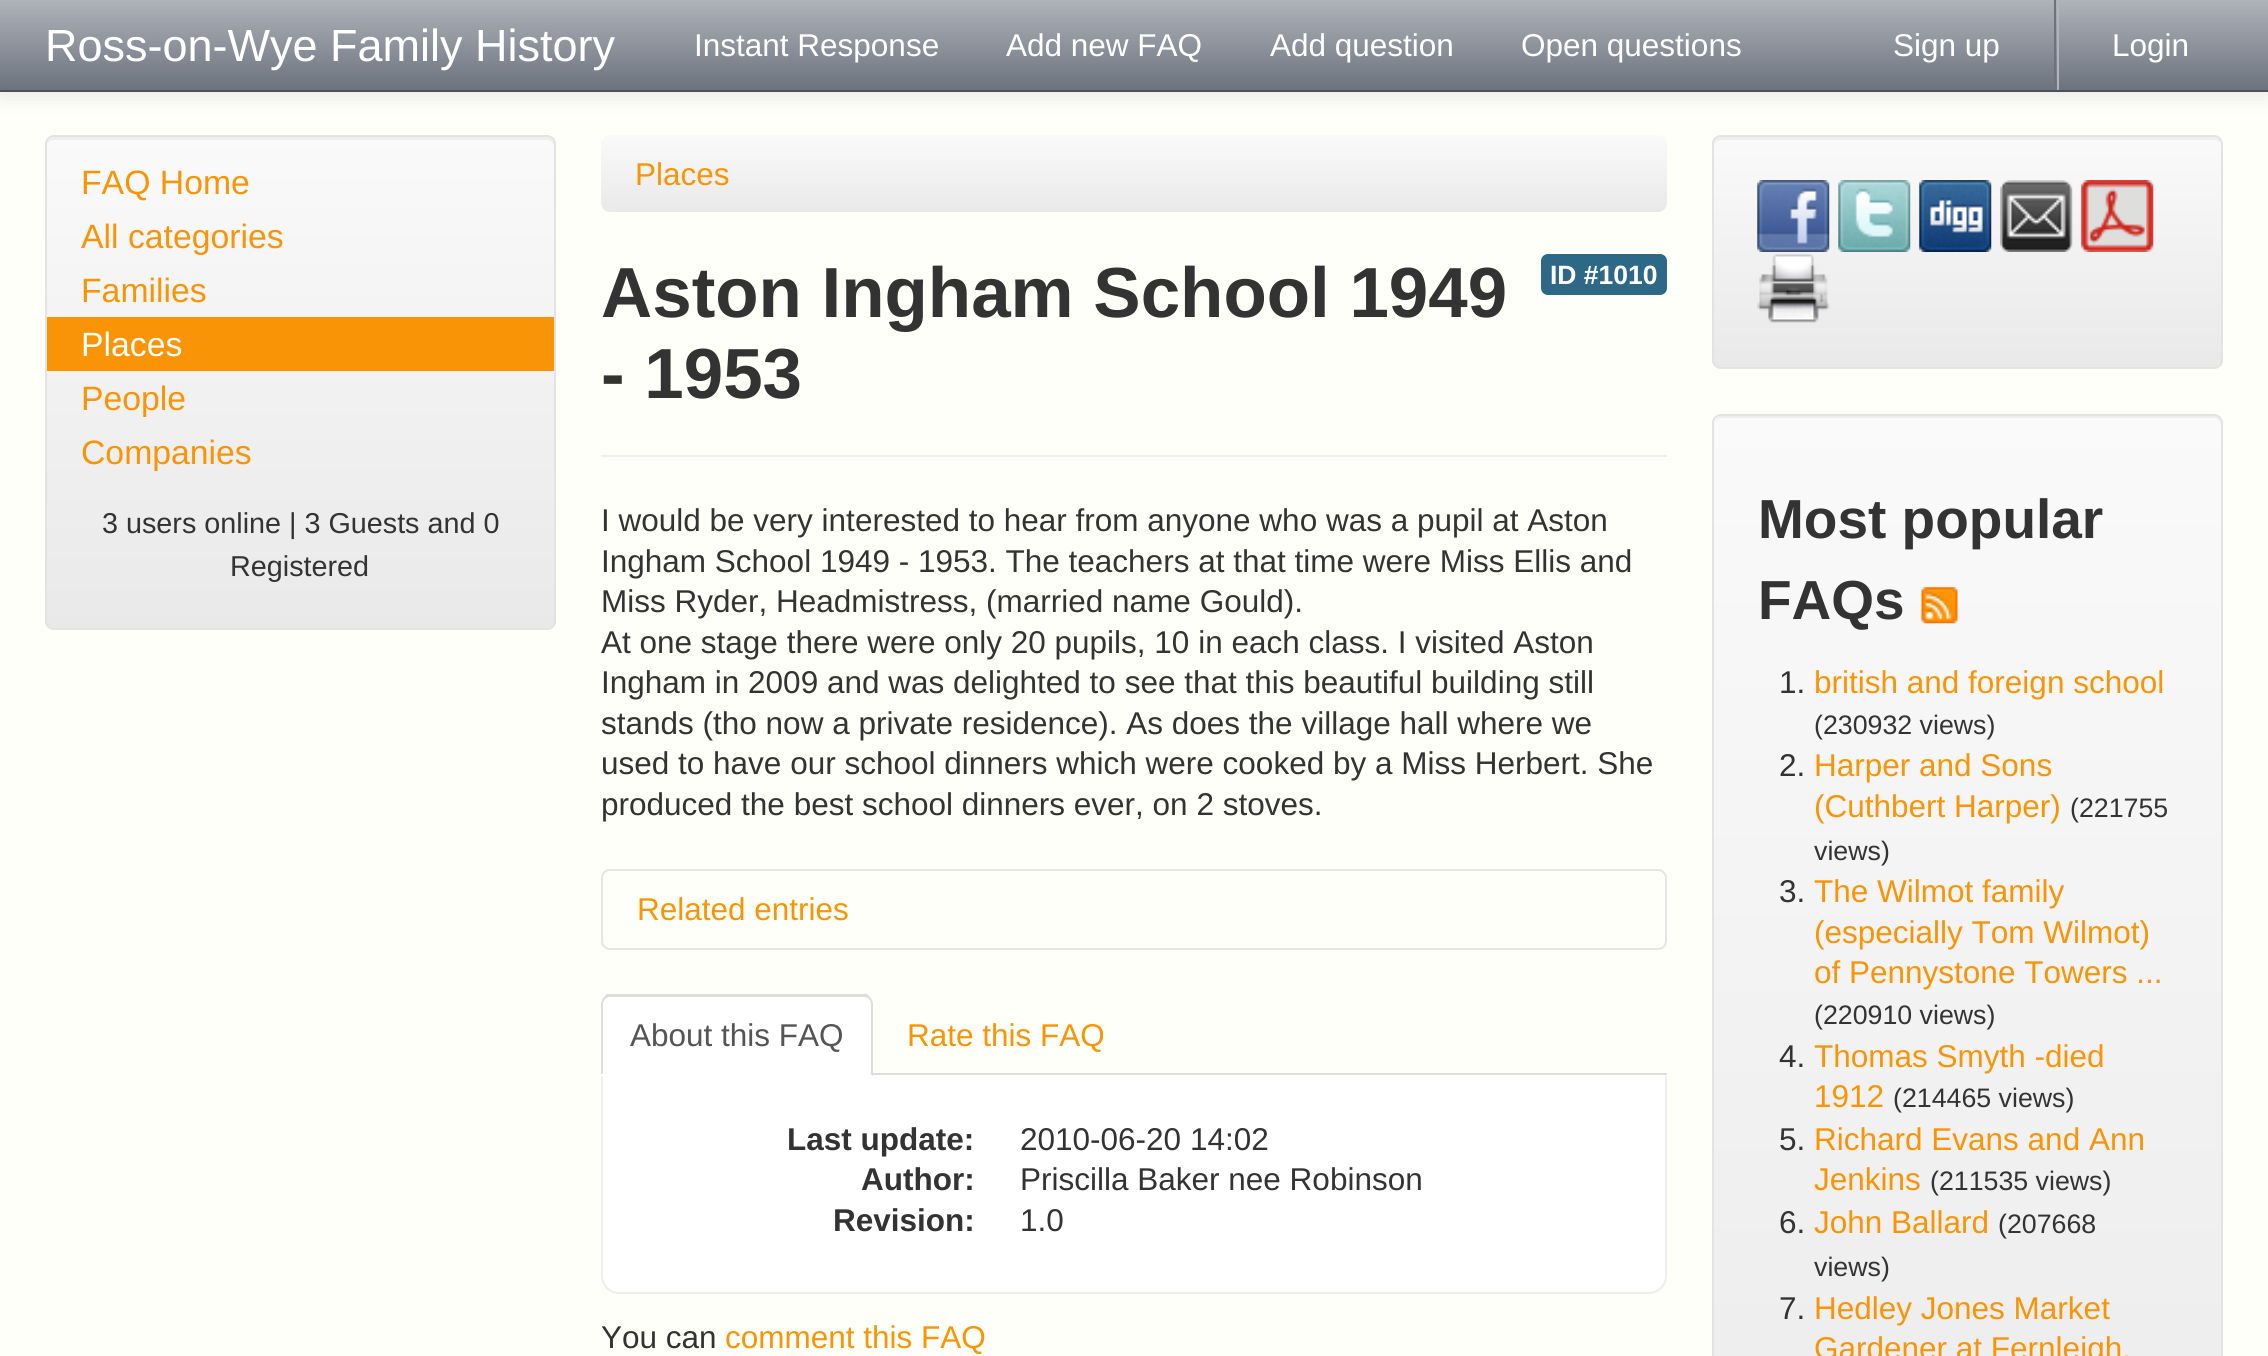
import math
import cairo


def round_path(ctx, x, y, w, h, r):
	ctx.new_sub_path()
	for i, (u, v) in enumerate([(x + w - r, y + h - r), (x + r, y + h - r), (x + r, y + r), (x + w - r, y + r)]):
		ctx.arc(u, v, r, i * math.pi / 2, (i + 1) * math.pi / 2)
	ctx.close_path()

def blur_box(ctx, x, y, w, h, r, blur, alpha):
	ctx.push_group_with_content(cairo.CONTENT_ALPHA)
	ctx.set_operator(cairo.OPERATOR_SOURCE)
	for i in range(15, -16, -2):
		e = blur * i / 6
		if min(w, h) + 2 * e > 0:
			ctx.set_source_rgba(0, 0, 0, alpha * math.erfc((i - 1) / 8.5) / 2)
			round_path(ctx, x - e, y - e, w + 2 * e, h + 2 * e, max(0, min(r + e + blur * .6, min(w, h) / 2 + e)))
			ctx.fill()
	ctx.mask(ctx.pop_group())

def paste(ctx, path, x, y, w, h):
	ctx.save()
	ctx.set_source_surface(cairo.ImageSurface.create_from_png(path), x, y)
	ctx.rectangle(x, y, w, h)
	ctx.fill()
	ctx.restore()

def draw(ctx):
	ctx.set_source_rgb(1, 1, 0.976)
	ctx.paint()
	ctx.set_source_rgb(0, 0, 0)
	blur_box(ctx, 0, 2, 2268, 93, 0, 11, 0.1)
	gradient = cairo.LinearGradient(1134, 0, 1134, 90)
	gradient.add_color_stop_rgba(0, 0.686, 0.702, 0.729, 1)
	gradient.add_color_stop_rgba(1, 0.424, 0.451, 0.494, 1)
	ctx.set_source(gradient)
	ctx.rectangle(0, 0, 2268, 90)
	ctx.fill()
	ctx.set_source_rgb(0.298, 0.318, 0.349)
	ctx.rectangle(0, 90, 2268, 2)
	ctx.fill()
	ctx.select_font_face('Liberation Sans')
	ctx.set_font_size(45)
	ctx.set_source_rgb(1, 1, 1)
	ctx.move_to(45, 61)
	ctx.show_text('Ross-on-Wye Family History')
	ctx.set_font_size(31.5)
	for x, y, s in [
		(694, 56, 'Instant Response'),
		(1006, 56, 'Add new FAQ'),
		(1270, 56, 'Add question'),
		(1521, 56, 'Open questions'),
		(1893, 56, 'Sign up'),
	]:
		ctx.move_to(x, y)
		ctx.show_text(s)
	ctx.set_source_rgb(0.686, 0.702, 0.729)
	ctx.rectangle(2057, 0, 2, 90)
	ctx.fill()
	ctx.set_source_rgb(0.424, 0.451, 0.494)
	ctx.rectangle(2054, 0, 2, 90)
	ctx.fill()
	ctx.set_source_rgb(1, 1, 1)
	ctx.move_to(2112, 56)
	ctx.show_text('Login')
	ctx.save()
	round_path(ctx, 45, 135, 511, 495, 9)
	ctx.clip()
	gradient = cairo.LinearGradient(300, 137, 300, 628)
	gradient.add_color_stop_rgba(0, 0.98, 0.98, 0.98, 1)
	gradient.add_color_stop_rgba(1, 0.914, 0.914, 0.914, 1)
	ctx.set_source(gradient)
	ctx.rectangle(45, 137, 511, 491)
	ctx.fill()
	ctx.restore()
	ctx.set_source_rgb(0.933, 0.933, 0.933)
	ctx.new_path()
	ctx.move_to(54, 140)
	ctx.line_to(547, 140)
	ctx.curve_to(550, 140, 554, 143, 554, 146)
	ctx.curve_to(554, 142, 552, 137, 547, 137)
	ctx.line_to(54, 137)
	ctx.curve_to(49, 137, 47, 142, 47, 146)
	ctx.curve_to(47, 143, 50, 140, 54, 140)
	ctx.close_path()
	ctx.fill()
	round_path(ctx, 46, 136, 509, 493, 8)
	ctx.set_source_rgb(0.89, 0.89, 0.89)
	ctx.stroke()
	ctx.set_font_size(33.75)
	ctx.set_source_rgb(0.973, 0.58, 0.024)
	for x, y, s in [
		(81, 194, 'FAQ Home'),
		(81, 248, 'All categories'),
		(81, 302, 'Families'),
	]:
		ctx.move_to(x, y)
		ctx.show_text(s)
	ctx.rectangle(47, 317, 507, 54)
	ctx.fill()
	ctx.set_source_rgb(1, 1, 1)
	ctx.move_to(81, 356)
	ctx.show_text('Places')
	ctx.set_source_rgb(0.973, 0.58, 0.024)
	ctx.move_to(81, 410)
	ctx.show_text('People')
	ctx.move_to(81, 464)
	ctx.show_text('Companies')
	ctx.set_font_size(28.75)
	ctx.set_source_rgb(0.2, 0.2, 0.2)
	ctx.move_to(102, 533)
	ctx.show_text('3 users online | 3 Guests and 0')
	ctx.move_to(230, 576)
	ctx.show_text('Registered')
	gradient = cairo.LinearGradient(1134, 135, 1134, 212)
	gradient.add_color_stop_rgba(0, 0.98, 0.98, 0.98, 1)
	gradient.add_color_stop_rgba(1, 0.914, 0.914, 0.914, 1)
	ctx.set_source(gradient)
	round_path(ctx, 601, 135, 1066, 77, 9)
	ctx.fill()
	ctx.set_font_size(31.5)
	ctx.set_source_rgb(0.973, 0.58, 0.024)
	ctx.move_to(635, 185)
	ctx.show_text('Places')
	ctx.select_font_face('Liberation Sans', cairo.FONT_SLANT_NORMAL, cairo.FONT_WEIGHT_BOLD)
	ctx.set_font_size(70.9)
	ctx.set_source_rgb(0.2, 0.2, 0.2)
	ctx.move_to(601, 317)
	ctx.show_text('Aston Ingham School 1949')
	ctx.move_to(601, 398)
	ctx.show_text('- 1953')
	ctx.set_source_rgb(0.176, 0.412, 0.529)
	round_path(ctx, 1541, 254, 126, 41, 7)
	ctx.fill()
	ctx.set_font_size(26.5)
	ctx.set_source_rgb(1, 1, 1)
	ctx.move_to(1550, 284)
	ctx.show_text('ID #1010')
	ctx.set_source_rgb(0.933, 0.933, 0.933)
	ctx.rectangle(601, 455, 1066, 2)
	ctx.fill()
	ctx.set_source_rgb(1, 1, 1)
	ctx.rectangle(601, 457, 1066, 2)
	ctx.fill()
	ctx.select_font_face('Liberation Sans')
	ctx.set_font_size(31.5)
	ctx.set_source_rgb(0.2, 0.2, 0.2)
	for x, y, s in [
		(601, 531, 'I would be very interested to hear from anyone who was a pupil at Aston'),
		(601, 572, 'Ingham School 1949 - 1953. The teachers at that time were Miss Ellis and'),
		(601, 612, 'Miss Ryder, Headmistress, (married name Gould).'),
		(601, 653, 'At one stage there were only 20 pupils, 10 in each class. I visited Aston'),
		(601, 693, 'Ingham in 2009 and was delighted to see that this beautiful building still'),
		(601, 734, 'stands (tho now a private residence). As does the village hall where we'),
		(601, 774, 'used to have our school dinners which were cooked by a Miss Herbert. She'),
		(601, 815, 'produced the best school dinners ever, on 2 stoves.'),
	]:
		ctx.move_to(x, y)
		ctx.show_text(s)
	round_path(ctx, 602, 870, 1064, 79, 8)
	ctx.set_source_rgb(0.898, 0.898, 0.898)
	ctx.stroke()
	ctx.set_source_rgb(0.973, 0.58, 0.024)
	ctx.move_to(637, 920)
	ctx.show_text('Related entries')
	ctx.set_source_rgb(0.867, 0.867, 0.867)
	ctx.rectangle(873, 1073, 794, 2)
	ctx.fill()
	ctx.set_source_rgb(1, 1, 1)
	ctx.new_path()
	ctx.move_to(610, 995)
	ctx.line_to(864, 995)
	ctx.curve_to(869, 995, 873, 999, 873, 1004)
	ctx.line_to(873, 1076)
	ctx.line_to(601, 1076)
	ctx.line_to(601, 1004)
	ctx.curve_to(601, 999, 605, 995, 610, 995)
	ctx.close_path()
	ctx.fill()
	ctx.set_source_rgb(0.867, 0.867, 0.867)
	ctx.new_path()
	ctx.move_to(610, 997)
	ctx.curve_to(608, 997, 606, 998, 605, 999)
	ctx.line_to(604, 997)
	ctx.line_to(607, 994)
	ctx.line_to(867, 994)
	ctx.line_to(870, 997)
	ctx.line_to(869, 999)
	ctx.curve_to(868, 998, 866, 997, 864, 997)
	ctx.close_path()
	ctx.fill()
	ctx.new_path()
	ctx.move_to(873, 1076)
	ctx.line_to(873, 1004)
	ctx.curve_to(873, 1002, 872, 999, 870, 997)
	ctx.line_to(869, 999)
	ctx.curve_to(870, 1000, 871, 1002, 871, 1004)
	ctx.line_to(871, 1073)
	ctx.line_to(870, 1073)
	ctx.close_path()
	ctx.fill()
	ctx.new_path()
	ctx.move_to(601, 1075)
	ctx.line_to(601, 1004)
	ctx.curve_to(601, 1002, 602, 999, 604, 997)
	ctx.line_to(605, 999)
	ctx.curve_to(604, 1000, 603, 1002, 603, 1004)
	ctx.line_to(603, 1073)
	ctx.close_path()
	ctx.fill()
	ctx.set_source_rgb(0.333, 0.333, 0.333)
	ctx.move_to(630, 1046)
	ctx.show_text('About this FAQ')
	ctx.set_source_rgb(0.973, 0.58, 0.024)
	ctx.move_to(907, 1046)
	ctx.show_text('Rate this FAQ')
	ctx.set_source_rgb(1, 1, 1)
	ctx.new_path()
	ctx.move_to(601, 1076)
	ctx.line_to(1667, 1076)
	ctx.line_to(1667, 1276)
	ctx.curve_to(1667, 1286, 1659, 1294, 1649, 1294)
	ctx.line_to(619, 1294)
	ctx.curve_to(609, 1294, 601, 1286, 601, 1276)
	ctx.close_path()
	ctx.fill()
	ctx.set_source_rgb(0.933, 0.933, 0.933)
	ctx.set_fill_rule(cairo.FILL_RULE_EVEN_ODD)
	ctx.new_path()
	ctx.move_to(601, 1076)
	ctx.line_to(1667, 1076)
	ctx.line_to(1667, 1276)
	ctx.curve_to(1667, 1286, 1659, 1294, 1649, 1294)
	ctx.line_to(619, 1294)
	ctx.curve_to(609, 1294, 601, 1286, 601, 1276)
	ctx.close_path()
	ctx.move_to(603, 1076)
	ctx.line_to(1665, 1076)
	ctx.line_to(1665, 1276)
	ctx.curve_to(1665, 1284, 1658, 1292, 1649, 1292)
	ctx.line_to(619, 1292)
	ctx.curve_to(610, 1292, 603, 1284, 603, 1276)
	ctx.close_path()
	ctx.fill()
	ctx.select_font_face('Liberation Sans', cairo.FONT_SLANT_NORMAL, cairo.FONT_WEIGHT_BOLD)
	ctx.set_source_rgb(0.2, 0.2, 0.2)
	ctx.move_to(787, 1150)
	ctx.show_text('Last update:')
	ctx.select_font_face('Liberation Sans')
	ctx.move_to(1020, 1150)
	ctx.show_text('2010-06-20 14:02')
	ctx.select_font_face('Liberation Sans', cairo.FONT_SLANT_NORMAL, cairo.FONT_WEIGHT_BOLD)
	ctx.move_to(861, 1190)
	ctx.show_text('Author:')
	ctx.select_font_face('Liberation Sans')
	ctx.move_to(1020, 1190)
	ctx.show_text('Priscilla Baker nee Robinson')
	ctx.select_font_face('Liberation Sans', cairo.FONT_SLANT_NORMAL, cairo.FONT_WEIGHT_BOLD)
	ctx.move_to(833, 1231)
	ctx.show_text('Revision:')
	ctx.select_font_face('Liberation Sans')
	ctx.move_to(1020, 1231)
	ctx.show_text('1.0')
	ctx.move_to(601, 1348)
	ctx.show_text('You can')
	ctx.set_source_rgb(0.973, 0.58, 0.024)
	ctx.move_to(725, 1348)
	ctx.show_text('comment this FAQ')
	ctx.save()
	ctx.set_fill_rule(cairo.FILL_RULE_WINDING)
	round_path(ctx, 1712, 135, 511, 234, 9)
	ctx.clip()
	gradient = cairo.LinearGradient(1968, 137, 1968, 367)
	gradient.add_color_stop_rgba(0, 0.98, 0.98, 0.98, 1)
	gradient.add_color_stop_rgba(1, 0.914, 0.914, 0.914, 1)
	ctx.set_source(gradient)
	ctx.rectangle(1712, 137, 511, 230)
	ctx.fill()
	ctx.restore()
	ctx.set_source_rgb(0.933, 0.933, 0.933)
	ctx.set_fill_rule(cairo.FILL_RULE_WINDING)
	ctx.new_path()
	ctx.move_to(1721, 140)
	ctx.line_to(2214, 140)
	ctx.curve_to(2218, 140, 2221, 143, 2221, 146)
	ctx.curve_to(2221, 142, 2219, 137, 2214, 137)
	ctx.line_to(1722, 137)
	ctx.curve_to(1718, 137, 1715, 140, 1715, 143)
	ctx.curve_to(1716, 141, 1719, 140, 1721, 140)
	ctx.close_path()
	ctx.fill()
	round_path(ctx, 1713, 136, 509, 232, 8)
	ctx.set_source_rgb(0.89, 0.89, 0.89)
	ctx.stroke()
	paste(ctx, 'media/1.png', 1757, 180, 73, 72)
	paste(ctx, 'media/2.png', 1838, 180, 73, 72)
	paste(ctx, 'media/3.png', 1919, 180, 73, 72)
	paste(ctx, 'media/4.png', 2000, 180, 73, 72)
	paste(ctx, 'media/5.png', 2081, 180, 73, 72)
	paste(ctx, 'media/6.png', 1757, 254, 73, 69)
	ctx.save()
	round_path(ctx, 1712, 414, 511, 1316, 9)
	ctx.clip()
	gradient = cairo.LinearGradient(1968, 416, 1968, 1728)
	gradient.add_color_stop_rgba(0, 0.98, 0.98, 0.98, 1)
	gradient.add_color_stop_rgba(1, 0.914, 0.914, 0.914, 1)
	ctx.set_source(gradient)
	ctx.rectangle(1712, 416, 511, 940)
	ctx.fill()
	ctx.restore()
	ctx.set_source_rgb(0.933, 0.933, 0.933)
	ctx.new_path()
	ctx.move_to(1721, 418)
	ctx.line_to(2214, 418)
	ctx.curve_to(2218, 418, 2221, 422, 2221, 425)
	ctx.line_to(2221, 423)
	ctx.curve_to(2221, 419, 2218, 416, 2214, 416)
	ctx.line_to(1722, 416)
	ctx.curve_to(1718, 416, 1716, 419, 1715, 422)
	ctx.curve_to(1716, 420, 1719, 418, 1721, 418)
	ctx.close_path()
	ctx.fill()
	round_path(ctx, 1713, 415, 509, 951, 8)
	ctx.set_source_rgb(0.89, 0.89, 0.89)
	ctx.stroke()
	ctx.select_font_face('Liberation Sans', cairo.FONT_SLANT_NORMAL, cairo.FONT_WEIGHT_BOLD)
	ctx.set_font_size(55)
	ctx.set_source_rgb(0.2, 0.2, 0.2)
	ctx.move_to(1758, 538)
	ctx.show_text('Most popular')
	ctx.move_to(1758, 619)
	ctx.show_text('FAQs')
	paste(ctx, 'media/7.png', 1921, 587, 37, 37)
	ctx.select_font_face('Liberation Sans')
	ctx.set_font_size(31.5)
	ctx.move_to(1779, 693)
	ctx.show_text('1.')
	ctx.set_source_rgb(0.973, 0.58, 0.024)
	ctx.move_to(1814, 693)
	ctx.show_text('british and foreign school')
	ctx.set_font_size(26.75)
	ctx.set_source_rgb(0.2, 0.2, 0.2)
	ctx.move_to(1814, 734)
	ctx.show_text('(230932 views)')
	ctx.set_font_size(31.5)
	ctx.move_to(1779, 776)
	ctx.show_text('2.')
	ctx.set_source_rgb(0.973, 0.58, 0.024)
	ctx.move_to(1814, 776)
	ctx.show_text('Harper and Sons')
	ctx.move_to(1814, 817)
	ctx.show_text('(Cuthbert Harper)')
	ctx.set_font_size(26.75)
	ctx.set_source_rgb(0.2, 0.2, 0.2)
	ctx.move_to(2070, 817)
	ctx.show_text('(221755')
	ctx.move_to(1814, 860)
	ctx.show_text('views)')
	ctx.set_font_size(31.5)
	ctx.move_to(1779, 902)
	ctx.show_text('3.')
	ctx.set_source_rgb(0.973, 0.58, 0.024)
	for x, y, s in [
		(1814, 902, 'The Wilmot family'),
		(1814, 943, '(especially Tom Wilmot)'),
		(1814, 983, 'of Pennystone Towers ...'),
	]:
		ctx.move_to(x, y)
		ctx.show_text(s)
	ctx.set_font_size(26.75)
	ctx.set_source_rgb(0.2, 0.2, 0.2)
	ctx.move_to(1814, 1024)
	ctx.show_text('(220910 views)')
	ctx.set_font_size(31.5)
	ctx.move_to(1779, 1067)
	ctx.show_text('4.')
	ctx.set_source_rgb(0.973, 0.58, 0.024)
	ctx.move_to(1814, 1067)
	ctx.show_text('Thomas Smyth -died')
	ctx.move_to(1814, 1107)
	ctx.show_text('1912')
	ctx.set_font_size(26.75)
	ctx.set_source_rgb(0.2, 0.2, 0.2)
	ctx.move_to(1893, 1107)
	ctx.show_text('(214465 views)')
	ctx.set_font_size(31.5)
	ctx.move_to(1779, 1150)
	ctx.show_text('5.')
	ctx.set_source_rgb(0.973, 0.58, 0.024)
	ctx.move_to(1814, 1150)
	ctx.show_text('Richard Evans and Ann')
	ctx.move_to(1814, 1190)
	ctx.show_text('Jenkins')
	ctx.set_font_size(26.75)
	ctx.set_source_rgb(0.2, 0.2, 0.2)
	ctx.move_to(1930, 1190)
	ctx.show_text('(211535 views)')
	ctx.set_font_size(31.5)
	ctx.move_to(1779, 1233)
	ctx.show_text('6.')
	ctx.set_source_rgb(0.973, 0.58, 0.024)
	ctx.move_to(1814, 1233)
	ctx.show_text('John Ballard')
	ctx.set_font_size(26.75)
	ctx.set_source_rgb(0.2, 0.2, 0.2)
	ctx.move_to(1998, 1233)
	ctx.show_text('(207668')
	ctx.move_to(1814, 1276)
	ctx.show_text('views)')
	ctx.set_font_size(31.5)
	ctx.move_to(1779, 1319)
	ctx.show_text('7.')
	ctx.set_source_rgb(0.973, 0.58, 0.024)
	ctx.move_to(1814, 1319)
	ctx.show_text('Hedley Jones Market')
	ctx.move_to(1814, 1359)
	ctx.show_text('Gardener at Fernleigh,')


surface = cairo.ImageSurface(cairo.FORMAT_RGB24, 2268, 1356)
ctx = cairo.Context(surface)
options = cairo.FontOptions()
options.set_hint_metrics(cairo.HINT_METRICS_OFF)
options.set_hint_style(cairo.HINT_STYLE_NONE)
ctx.set_font_options(options)
ctx.set_miter_limit(4)
draw(ctx)
surface.write_to_png('image.png')
